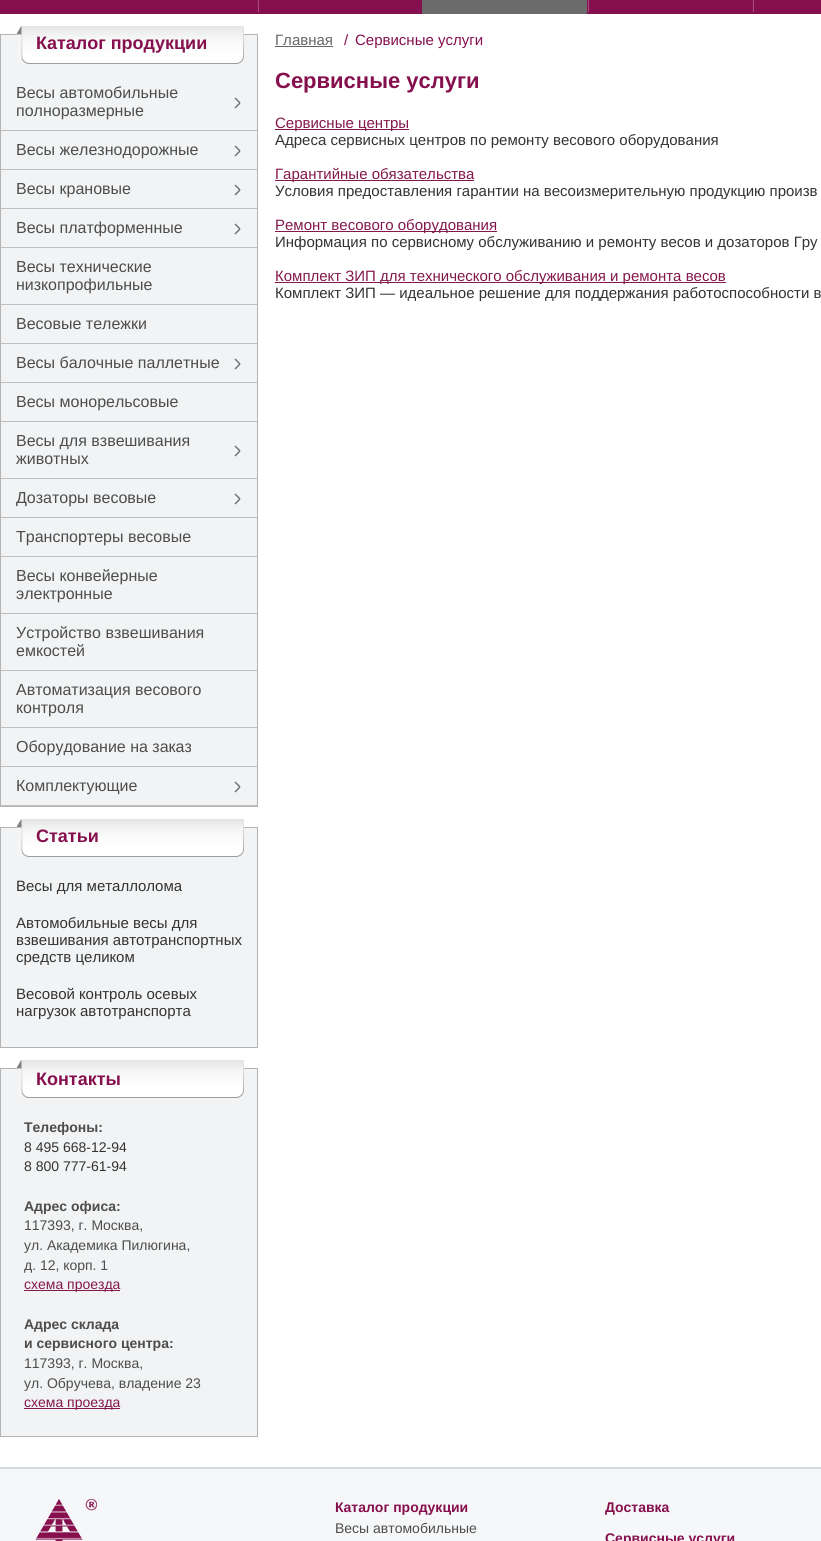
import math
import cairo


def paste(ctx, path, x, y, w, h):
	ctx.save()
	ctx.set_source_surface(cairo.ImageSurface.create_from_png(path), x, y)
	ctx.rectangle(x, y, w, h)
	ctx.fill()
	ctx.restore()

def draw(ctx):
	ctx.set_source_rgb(1, 1, 1)
	ctx.paint()
	ctx.set_source_rgb(0.525, 0.059, 0.306)
	ctx.rectangle(0, 0, 821, 14)
	ctx.fill()
	paste(ctx, 'media/1.png', 257, 0, 2, 12)
	ctx.set_source_rgb(0.42, 0.42, 0.42)
	ctx.rectangle(422, 0, 165, 14)
	ctx.fill()
	paste(ctx, 'media/1.png', 587, 0, 2, 12)
	paste(ctx, 'media/1.png', 752, 0, 2, 12)
	ctx.set_source_rgb(0.945, 0.953, 0.957)
	ctx.rectangle(1, 35, 256, 770)
	ctx.fill()
	ctx.rectangle(0.5, 34.5, 257, 772)
	ctx.set_source_rgb(0.702, 0.702, 0.702)
	ctx.set_line_width(1)
	ctx.stroke()
	paste(ctx, 'media/2.png', 17, 26, 227, 38)
	ctx.select_font_face('Liberation Sans', cairo.FONT_SLANT_NORMAL, cairo.FONT_WEIGHT_BOLD)
	ctx.set_font_size(18)
	ctx.set_source_rgb(0.525, 0.059, 0.306)
	ctx.move_to(36, 49)
	ctx.show_text('Каталог продукции')
	ctx.set_source_rgb(0.749, 0.749, 0.749)
	ctx.rectangle(1, 130, 256, 1)
	ctx.fill()
	ctx.select_font_face('Liberation Sans')
	ctx.set_font_size(16)
	ctx.set_source_rgb(0.302, 0.302, 0.302)
	ctx.move_to(16, 98)
	ctx.show_text('Весы автомобильные')
	ctx.move_to(16, 116)
	ctx.show_text('полноразмерные')
	ctx.set_source_rgb(0.427, 0.431, 0.439)
	ctx.new_path()
	ctx.move_to(235.5, 97.5)
	ctx.line_to(240.5, 102.5)
	ctx.line_to(239.5, 103.5)
	ctx.line_to(234.5, 98.5)
	ctx.close_path()
	ctx.fill()
	ctx.new_path()
	ctx.move_to(234.5, 107.5)
	ctx.line_to(239.5, 102.5)
	ctx.line_to(240.5, 103.5)
	ctx.line_to(235.5, 108.5)
	ctx.close_path()
	ctx.move_to(235.5, 145.5)
	ctx.line_to(240.5, 150.5)
	ctx.line_to(239.5, 151.5)
	ctx.line_to(234.5, 146.5)
	ctx.close_path()
	ctx.fill()
	ctx.set_source_rgb(0.749, 0.749, 0.749)
	ctx.rectangle(1, 169, 256, 1)
	ctx.fill()
	ctx.set_source_rgb(0.302, 0.302, 0.302)
	ctx.move_to(16, 155)
	ctx.show_text('Весы железнодорожные')
	ctx.set_source_rgb(0.427, 0.431, 0.439)
	ctx.new_path()
	ctx.move_to(234.5, 155.5)
	ctx.line_to(239.5, 150.5)
	ctx.line_to(240.5, 151.5)
	ctx.line_to(235.5, 156.5)
	ctx.close_path()
	ctx.move_to(235.5, 184.5)
	ctx.line_to(240.5, 189.5)
	ctx.line_to(239.5, 190.5)
	ctx.line_to(234.5, 185.5)
	ctx.close_path()
	ctx.fill()
	ctx.set_source_rgb(0.749, 0.749, 0.749)
	ctx.rectangle(1, 208, 256, 1)
	ctx.fill()
	ctx.set_source_rgb(0.302, 0.302, 0.302)
	ctx.move_to(16, 194)
	ctx.show_text('Весы крановые')
	ctx.set_source_rgb(0.427, 0.431, 0.439)
	ctx.new_path()
	ctx.move_to(234.5, 194.5)
	ctx.line_to(239.5, 189.5)
	ctx.line_to(240.5, 190.5)
	ctx.line_to(235.5, 195.5)
	ctx.close_path()
	ctx.move_to(235.5, 223.5)
	ctx.line_to(240.5, 228.5)
	ctx.line_to(239.5, 229.5)
	ctx.line_to(234.5, 224.5)
	ctx.close_path()
	ctx.fill()
	ctx.set_source_rgb(0.749, 0.749, 0.749)
	ctx.rectangle(1, 247, 256, 1)
	ctx.fill()
	ctx.set_source_rgb(0.302, 0.302, 0.302)
	ctx.move_to(16, 233)
	ctx.show_text('Весы платформенные')
	ctx.set_source_rgb(0.427, 0.431, 0.439)
	ctx.new_path()
	ctx.move_to(234.5, 233.5)
	ctx.line_to(239.5, 228.5)
	ctx.line_to(240.5, 229.5)
	ctx.line_to(235.5, 234.5)
	ctx.close_path()
	ctx.fill()
	ctx.set_source_rgb(0.749, 0.749, 0.749)
	ctx.rectangle(1, 304, 256, 1)
	ctx.fill()
	ctx.set_source_rgb(0.302, 0.302, 0.302)
	ctx.move_to(16, 272)
	ctx.show_text('Весы технические')
	ctx.move_to(16, 290)
	ctx.show_text('низкопрофильные')
	ctx.set_source_rgb(0.749, 0.749, 0.749)
	ctx.rectangle(1, 343, 256, 1)
	ctx.fill()
	ctx.set_source_rgb(0.302, 0.302, 0.302)
	ctx.move_to(16, 329)
	ctx.show_text('Весовые тележки')
	ctx.set_source_rgb(0.749, 0.749, 0.749)
	ctx.rectangle(1, 382, 256, 1)
	ctx.fill()
	ctx.set_source_rgb(0.302, 0.302, 0.302)
	ctx.move_to(16, 368)
	ctx.show_text('Весы балочные паллетные')
	ctx.set_source_rgb(0.427, 0.431, 0.439)
	ctx.new_path()
	ctx.move_to(235.5, 358.5)
	ctx.line_to(240.5, 363.5)
	ctx.line_to(239.5, 364.5)
	ctx.line_to(234.5, 359.5)
	ctx.close_path()
	ctx.fill()
	ctx.new_path()
	ctx.move_to(234.5, 368.5)
	ctx.line_to(239.5, 363.5)
	ctx.line_to(240.5, 364.5)
	ctx.line_to(235.5, 369.5)
	ctx.close_path()
	ctx.fill()
	ctx.set_source_rgb(0.749, 0.749, 0.749)
	ctx.rectangle(1, 421, 256, 1)
	ctx.fill()
	ctx.set_source_rgb(0.302, 0.302, 0.302)
	ctx.move_to(16, 407)
	ctx.show_text('Весы монорельсовые')
	ctx.set_source_rgb(0.749, 0.749, 0.749)
	ctx.rectangle(1, 478, 256, 1)
	ctx.fill()
	ctx.set_source_rgb(0.302, 0.302, 0.302)
	ctx.move_to(16, 446)
	ctx.show_text('Весы для взвешивания')
	ctx.move_to(16, 464)
	ctx.show_text('животных')
	ctx.set_source_rgb(0.427, 0.431, 0.439)
	ctx.new_path()
	ctx.move_to(235.5, 445.5)
	ctx.line_to(240.5, 450.5)
	ctx.line_to(239.5, 451.5)
	ctx.line_to(234.5, 446.5)
	ctx.close_path()
	ctx.fill()
	ctx.new_path()
	ctx.move_to(234.5, 455.5)
	ctx.line_to(239.5, 450.5)
	ctx.line_to(240.5, 451.5)
	ctx.line_to(235.5, 456.5)
	ctx.close_path()
	ctx.move_to(235.5, 493.5)
	ctx.line_to(240.5, 498.5)
	ctx.line_to(239.5, 499.5)
	ctx.line_to(234.5, 494.5)
	ctx.close_path()
	ctx.fill()
	ctx.set_source_rgb(0.749, 0.749, 0.749)
	ctx.rectangle(1, 517, 256, 1)
	ctx.fill()
	ctx.set_source_rgb(0.302, 0.302, 0.302)
	ctx.move_to(16, 503)
	ctx.show_text('Дозаторы весовые')
	ctx.set_source_rgb(0.427, 0.431, 0.439)
	ctx.new_path()
	ctx.move_to(234.5, 503.5)
	ctx.line_to(239.5, 498.5)
	ctx.line_to(240.5, 499.5)
	ctx.line_to(235.5, 504.5)
	ctx.close_path()
	ctx.fill()
	ctx.set_source_rgb(0.749, 0.749, 0.749)
	ctx.rectangle(1, 556, 256, 1)
	ctx.fill()
	ctx.set_source_rgb(0.302, 0.302, 0.302)
	ctx.move_to(16, 542)
	ctx.show_text('Транспортеры весовые')
	ctx.set_source_rgb(0.749, 0.749, 0.749)
	ctx.rectangle(1, 613, 256, 1)
	ctx.fill()
	ctx.set_source_rgb(0.302, 0.302, 0.302)
	ctx.move_to(16, 581)
	ctx.show_text('Весы конвейерные')
	ctx.move_to(16, 599)
	ctx.show_text('электронные')
	ctx.set_source_rgb(0.749, 0.749, 0.749)
	ctx.rectangle(1, 670, 256, 1)
	ctx.fill()
	ctx.set_source_rgb(0.302, 0.302, 0.302)
	ctx.move_to(16, 638)
	ctx.show_text('Устройство взвешивания')
	ctx.move_to(16, 656)
	ctx.show_text('емкостей')
	ctx.set_source_rgb(0.749, 0.749, 0.749)
	ctx.rectangle(1, 727, 256, 1)
	ctx.fill()
	ctx.set_source_rgb(0.302, 0.302, 0.302)
	ctx.move_to(16, 695)
	ctx.show_text('Автоматизация весового')
	ctx.move_to(16, 713)
	ctx.show_text('контроля')
	ctx.set_source_rgb(0.749, 0.749, 0.749)
	ctx.rectangle(1, 766, 256, 1)
	ctx.fill()
	ctx.set_source_rgb(0.302, 0.302, 0.302)
	ctx.move_to(16, 752)
	ctx.show_text('Оборудование на заказ')
	ctx.set_source_rgb(0.749, 0.749, 0.749)
	ctx.rectangle(1, 805, 256, 1)
	ctx.fill()
	ctx.set_source_rgb(0.302, 0.302, 0.302)
	ctx.move_to(16, 791)
	ctx.show_text('Комплектующие')
	ctx.set_source_rgb(0.427, 0.431, 0.439)
	ctx.new_path()
	ctx.move_to(235.5, 781.5)
	ctx.line_to(240.5, 786.5)
	ctx.line_to(239.5, 787.5)
	ctx.line_to(234.5, 782.5)
	ctx.close_path()
	ctx.fill()
	ctx.new_path()
	ctx.move_to(234.5, 791.5)
	ctx.line_to(239.5, 786.5)
	ctx.line_to(240.5, 787.5)
	ctx.line_to(235.5, 792.5)
	ctx.close_path()
	ctx.fill()
	ctx.set_source_rgb(0.945, 0.953, 0.957)
	ctx.rectangle(0.5, 827.5, 257, 220)
	ctx.fill_preserve()
	ctx.set_source_rgb(0.702, 0.702, 0.702)
	ctx.stroke()
	paste(ctx, 'media/2.png', 17, 819, 227, 38)
	ctx.select_font_face('Liberation Sans', cairo.FONT_SLANT_NORMAL, cairo.FONT_WEIGHT_BOLD)
	ctx.set_font_size(18)
	ctx.set_source_rgb(0.525, 0.059, 0.306)
	ctx.move_to(36, 842)
	ctx.show_text('Статьи')
	ctx.select_font_face('Liberation Sans')
	ctx.set_font_size(15)
	ctx.set_source_rgb(0.2, 0.2, 0.2)
	for x, y, s in [
		(16, 891, 'Весы для металлолома'),
		(16, 928, 'Автомобильные весы для'),
		(16, 945, 'взвешивания автотранспортных'),
		(16, 962, 'средств целиком'),
		(16, 999, 'Весовой контроль осевых'),
		(16, 1016, 'нагрузок автотранспорта'),
	]:
		ctx.move_to(x, y)
		ctx.show_text(s)
	ctx.set_source_rgb(0.945, 0.953, 0.957)
	ctx.rectangle(0.5, 1068.5, 257, 368)
	ctx.fill_preserve()
	ctx.set_source_rgb(0.702, 0.702, 0.702)
	ctx.stroke()
	paste(ctx, 'media/2.png', 17, 1060, 227, 38)
	ctx.select_font_face('Liberation Sans', cairo.FONT_SLANT_NORMAL, cairo.FONT_WEIGHT_BOLD)
	ctx.set_font_size(18)
	ctx.set_source_rgb(0.525, 0.059, 0.306)
	ctx.move_to(36, 1085)
	ctx.show_text('Контакты')
	ctx.set_font_size(14)
	ctx.set_source_rgb(0.302, 0.302, 0.302)
	ctx.move_to(24, 1132)
	ctx.show_text('Телефоны:')
	ctx.select_font_face('Liberation Sans')
	ctx.set_source_rgb(0.2, 0.2, 0.2)
	ctx.move_to(24, 1152)
	ctx.show_text('8 495 668-12-94')
	ctx.move_to(24, 1171)
	ctx.show_text('8 800 777-61-94')
	ctx.select_font_face('Liberation Sans', cairo.FONT_SLANT_NORMAL, cairo.FONT_WEIGHT_BOLD)
	ctx.set_source_rgb(0.302, 0.302, 0.302)
	ctx.move_to(24, 1211)
	ctx.show_text('Адрес офиса:')
	ctx.select_font_face('Liberation Sans')
	for x, y, s in [
		(24, 1230, '117393, г. Москва,'),
		(24, 1250, 'ул. Академика Пилюгина,'),
		(24, 1270, 'д. 12, корп. 1'),
	]:
		ctx.move_to(x, y)
		ctx.show_text(s)
	ctx.set_source_rgb(0.514, 0.094, 0.294)
	ctx.rectangle(24, 1290, 96, 1)
	ctx.fill()
	ctx.move_to(24, 1289)
	ctx.show_text('схема проезда')
	ctx.select_font_face('Liberation Sans', cairo.FONT_SLANT_NORMAL, cairo.FONT_WEIGHT_BOLD)
	ctx.set_source_rgb(0.302, 0.302, 0.302)
	ctx.move_to(24, 1329)
	ctx.show_text('Адрес склада')
	ctx.move_to(24, 1348)
	ctx.show_text('и сервисного центра:')
	ctx.select_font_face('Liberation Sans')
	ctx.move_to(24, 1368)
	ctx.show_text('117393, г. Москва,')
	ctx.move_to(24, 1388)
	ctx.show_text('ул. Обручева, владение 23')
	ctx.set_source_rgb(0.514, 0.094, 0.294)
	ctx.rectangle(24, 1408, 96, 1)
	ctx.fill()
	ctx.move_to(24, 1407)
	ctx.show_text('схема проезда')
	ctx.set_font_size(15)
	ctx.set_source_rgb(0.4, 0.4, 0.4)
	ctx.move_to(275, 45)
	ctx.show_text('Главная')
	ctx.rectangle(275, 46, 58, 1)
	ctx.fill()
	ctx.set_source_rgb(0.525, 0.059, 0.306)
	ctx.move_to(344, 45)
	ctx.show_text('/')
	ctx.move_to(355, 45)
	ctx.show_text('Сервисные услуги')
	ctx.select_font_face('Liberation Sans', cairo.FONT_SLANT_NORMAL, cairo.FONT_WEIGHT_BOLD)
	ctx.set_font_size(22)
	ctx.move_to(275, 88)
	ctx.show_text('Сервисные услуги')
	ctx.set_source_rgb(0.514, 0.094, 0.294)
	ctx.rectangle(275, 129, 134, 1)
	ctx.fill()
	ctx.select_font_face('Liberation Sans')
	ctx.set_font_size(15)
	ctx.move_to(275, 128)
	ctx.show_text('Сервисные центры')
	ctx.set_source_rgb(0.2, 0.2, 0.2)
	ctx.move_to(275, 145)
	ctx.show_text('Адреса сервисных центров по ремонту весового оборудования')
	ctx.set_source_rgb(0.514, 0.094, 0.294)
	ctx.rectangle(275, 180, 199, 1)
	ctx.fill()
	ctx.move_to(275, 179)
	ctx.show_text('Гарантийные обязательства')
	ctx.set_source_rgb(0.2, 0.2, 0.2)
	ctx.move_to(275, 196)
	ctx.show_text('Условия предоставления гарантии на весоизмерительную продукцию произв')
	ctx.set_source_rgb(0.514, 0.094, 0.294)
	ctx.rectangle(275, 231, 222, 1)
	ctx.fill()
	ctx.move_to(275, 230)
	ctx.show_text('Ремонт весового оборудования')
	ctx.set_source_rgb(0.2, 0.2, 0.2)
	ctx.move_to(275, 247)
	ctx.show_text('Информация по сервисному обслуживанию и ремонту весов и дозаторов Гру')
	ctx.set_source_rgb(0.514, 0.094, 0.294)
	ctx.rectangle(275, 282, 451, 1)
	ctx.fill()
	ctx.move_to(275, 281)
	ctx.show_text('Комплект ЗИП для технического обслуживания и ремонта весов')
	ctx.set_source_rgb(0.2, 0.2, 0.2)
	ctx.move_to(275, 298)
	ctx.show_text('Комплект ЗИП — идеальное решение для поддержания работоспособности в')
	ctx.set_source_rgb(0.961, 0.965, 0.969)
	ctx.rectangle(0, 1469, 821, 72)
	ctx.fill()
	ctx.set_source_rgb(0.839, 0.851, 0.871)
	ctx.rectangle(0, 1467, 821, 2)
	ctx.fill()
	paste(ctx, 'media/3.png', 35, 1499, 62, 42)
	ctx.select_font_face('Liberation Sans', cairo.FONT_SLANT_NORMAL, cairo.FONT_WEIGHT_BOLD)
	ctx.set_font_size(14)
	ctx.set_source_rgb(0.525, 0.059, 0.306)
	ctx.move_to(335, 1512)
	ctx.show_text('Каталог продукции')
	ctx.select_font_face('Liberation Sans')
	ctx.set_source_rgb(0.302, 0.302, 0.302)
	ctx.move_to(335, 1533)
	ctx.show_text('Весы автомобильные')
	ctx.select_font_face('Liberation Sans', cairo.FONT_SLANT_NORMAL, cairo.FONT_WEIGHT_BOLD)
	ctx.set_source_rgb(0.525, 0.059, 0.306)
	ctx.move_to(605, 1512)
	ctx.show_text('Доставка')
	ctx.move_to(605, 1543)
	ctx.show_text('Сервисные услуги')


surface = cairo.ImageSurface(cairo.FORMAT_RGB24, 821, 1541)
ctx = cairo.Context(surface)
options = cairo.FontOptions()
options.set_hint_metrics(cairo.HINT_METRICS_OFF)
options.set_hint_style(cairo.HINT_STYLE_NONE)
ctx.set_font_options(options)
ctx.set_miter_limit(4)
draw(ctx)
surface.write_to_png('image.png')
